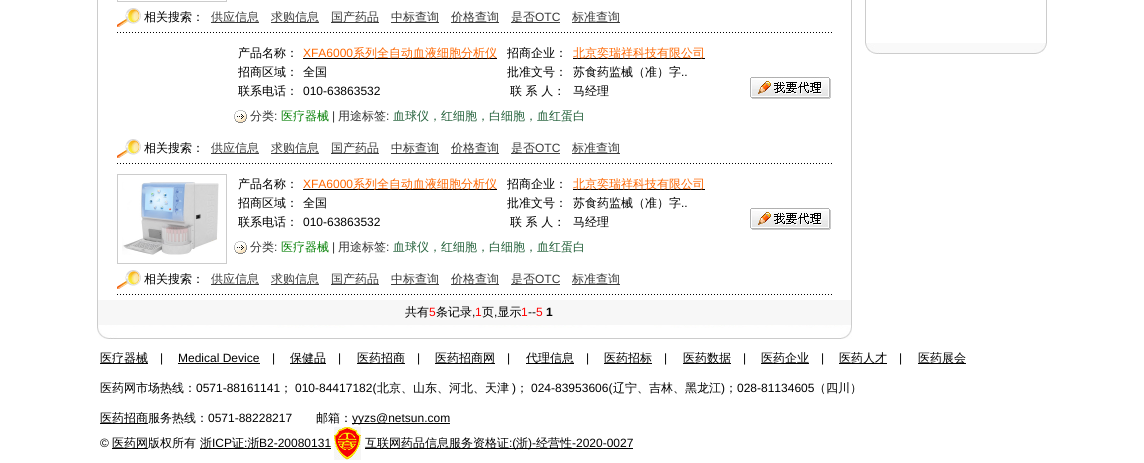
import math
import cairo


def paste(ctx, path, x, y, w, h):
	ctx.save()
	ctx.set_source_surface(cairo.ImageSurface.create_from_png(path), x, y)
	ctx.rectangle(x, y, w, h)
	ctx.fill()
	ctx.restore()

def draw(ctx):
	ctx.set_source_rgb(1, 1, 1)
	ctx.paint()
	ctx.set_source_rgb(0.8, 0.8, 0.8)
	ctx.rectangle(851, 0, 1, 325)
	ctx.fill()
	ctx.rectangle(97, 0, 1, 325)
	ctx.fill()
	ctx.rectangle(117.5, -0.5, 109, 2)
	ctx.set_line_width(1)
	ctx.stroke()
	paste(ctx, 'media/1.png', 117, 8, 24, 19)
	ctx.select_font_face('WenQuanYi Zen Hei Medium')
	ctx.set_font_size(12)
	ctx.set_source_rgb(0, 0, 0)
	ctx.move_to(144, 21)
	ctx.show_text('相关搜索：')
	ctx.set_source_rgb(0.227, 0.227, 0.227)
	ctx.rectangle(211, 22, 48, 1)
	ctx.fill()
	ctx.move_to(211, 21)
	ctx.show_text('供应信息')
	ctx.rectangle(271, 22, 48, 1)
	ctx.fill()
	ctx.move_to(271, 21)
	ctx.show_text('求购信息')
	ctx.rectangle(331, 22, 48, 1)
	ctx.fill()
	ctx.move_to(331, 21)
	ctx.show_text('国产药品')
	ctx.rectangle(391, 22, 48, 1)
	ctx.fill()
	ctx.move_to(391, 21)
	ctx.show_text('中标查询')
	ctx.rectangle(451, 22, 48, 1)
	ctx.fill()
	ctx.move_to(451, 21)
	ctx.show_text('价格查询')
	ctx.rectangle(511, 22, 49, 1)
	ctx.fill()
	ctx.move_to(511, 21)
	ctx.show_text('是否')
	ctx.select_font_face('Liberation Sans')
	ctx.move_to(535, 21)
	ctx.show_text('OTC')
	ctx.rectangle(572, 22, 48, 1)
	ctx.fill()
	ctx.select_font_face('WenQuanYi Zen Hei Medium')
	ctx.move_to(572, 21)
	ctx.show_text('标准查询')
	paste(ctx, 'media/2.png', 117, 32, 715, 1)
	ctx.set_source_rgb(0, 0, 0)
	ctx.move_to(238, 57)
	ctx.show_text('产品名称：')
	ctx.select_font_face('Liberation Sans')
	ctx.set_source_rgb(1, 0.4, 0)
	ctx.move_to(303, 57)
	ctx.show_text('XFA6000')
	ctx.set_source_rgb(0, 0, 0)
	ctx.rectangle(303, 58, 194, 1)
	ctx.fill()
	ctx.select_font_face('WenQuanYi Zen Hei Medium')
	ctx.set_source_rgb(1, 0.4, 0)
	ctx.move_to(353, 57)
	ctx.show_text('系列全自动血液细胞分析仪')
	ctx.set_source_rgb(0, 0, 0)
	ctx.move_to(507, 57)
	ctx.show_text('招商企业：')
	ctx.rectangle(573, 58, 132, 1)
	ctx.fill()
	ctx.set_source_rgb(1, 0.4, 0)
	ctx.move_to(573, 57)
	ctx.show_text('北京奕瑞祥科技有限公司')
	paste(ctx, 'media/3.png', 750, 77, 81, 22)
	ctx.set_source_rgb(0, 0, 0)
	for x, y, s in [
		(238, 76, '招商区域：'),
		(303, 76, '全国'),
		(507, 76, '批准文号：'),
		(573, 76, '苏食药监械（准）字'),
	]:
		ctx.move_to(x, y)
		ctx.show_text(s)
	ctx.select_font_face('Liberation Sans')
	ctx.move_to(681, 76)
	ctx.show_text('..')
	ctx.select_font_face('WenQuanYi Zen Hei Medium')
	ctx.move_to(238, 95)
	ctx.show_text('联系电话：')
	ctx.select_font_face('Liberation Sans')
	ctx.move_to(303, 95)
	ctx.show_text('010-63863532')
	ctx.select_font_face('WenQuanYi Zen Hei Medium')
	ctx.move_to(510, 95)
	ctx.show_text('联 系 人：')
	ctx.move_to(573, 95)
	ctx.show_text('马经理')
	paste(ctx, 'media/4.png', 234, 110, 13, 13)
	ctx.set_source_rgb(0.2, 0.2, 0.2)
	ctx.move_to(250, 120)
	ctx.show_text('分类')
	ctx.select_font_face('Liberation Sans')
	ctx.move_to(274, 120)
	ctx.show_text(':')
	ctx.select_font_face('WenQuanYi Zen Hei Medium')
	ctx.set_source_rgb(0.012, 0.498, 0.012)
	ctx.move_to(281, 120)
	ctx.show_text('医疗器械')
	ctx.select_font_face('Liberation Sans')
	ctx.set_source_rgb(0.2, 0.2, 0.2)
	ctx.move_to(332, 120)
	ctx.show_text('|')
	ctx.select_font_face('WenQuanYi Zen Hei Medium')
	ctx.move_to(338, 120)
	ctx.show_text('用途标签')
	ctx.select_font_face('Liberation Sans')
	ctx.move_to(386, 120)
	ctx.show_text(':')
	ctx.select_font_face('WenQuanYi Zen Hei Medium')
	ctx.set_source_rgb(0.129, 0.373, 0.22)
	ctx.move_to(393, 120)
	ctx.show_text('血球仪，红细胞，白细胞，血红蛋白')
	paste(ctx, 'media/1.png', 117, 139, 24, 19)
	ctx.set_source_rgb(0, 0, 0)
	ctx.move_to(144, 152)
	ctx.show_text('相关搜索：')
	ctx.set_source_rgb(0.227, 0.227, 0.227)
	ctx.rectangle(211, 153, 48, 1)
	ctx.fill()
	ctx.move_to(211, 152)
	ctx.show_text('供应信息')
	ctx.rectangle(271, 153, 48, 1)
	ctx.fill()
	ctx.move_to(271, 152)
	ctx.show_text('求购信息')
	ctx.rectangle(331, 153, 48, 1)
	ctx.fill()
	ctx.move_to(331, 152)
	ctx.show_text('国产药品')
	ctx.rectangle(391, 153, 48, 1)
	ctx.fill()
	ctx.move_to(391, 152)
	ctx.show_text('中标查询')
	ctx.rectangle(451, 153, 48, 1)
	ctx.fill()
	ctx.move_to(451, 152)
	ctx.show_text('价格查询')
	ctx.rectangle(511, 153, 49, 1)
	ctx.fill()
	ctx.move_to(511, 152)
	ctx.show_text('是否')
	ctx.select_font_face('Liberation Sans')
	ctx.move_to(535, 152)
	ctx.show_text('OTC')
	ctx.rectangle(572, 153, 48, 1)
	ctx.fill()
	ctx.select_font_face('WenQuanYi Zen Hei Medium')
	ctx.move_to(572, 152)
	ctx.show_text('标准查询')
	paste(ctx, 'media/2.png', 117, 163, 715, 1)
	ctx.rectangle(117.5, 174.5, 109, 89)
	ctx.set_source_rgb(0.8, 0.8, 0.8)
	ctx.stroke()
	paste(ctx, 'media/5.png', 122, 182, 97, 73)
	ctx.set_source_rgb(0, 0, 0)
	ctx.move_to(238, 188)
	ctx.show_text('产品名称：')
	ctx.select_font_face('Liberation Sans')
	ctx.set_source_rgb(1, 0.4, 0)
	ctx.move_to(303, 188)
	ctx.show_text('XFA6000')
	ctx.set_source_rgb(0, 0, 0)
	ctx.rectangle(303, 189, 194, 1)
	ctx.fill()
	ctx.select_font_face('WenQuanYi Zen Hei Medium')
	ctx.set_source_rgb(1, 0.4, 0)
	ctx.move_to(353, 188)
	ctx.show_text('系列全自动血液细胞分析仪')
	ctx.set_source_rgb(0, 0, 0)
	ctx.move_to(507, 188)
	ctx.show_text('招商企业：')
	ctx.rectangle(573, 189, 132, 1)
	ctx.fill()
	ctx.set_source_rgb(1, 0.4, 0)
	ctx.move_to(573, 188)
	ctx.show_text('北京奕瑞祥科技有限公司')
	paste(ctx, 'media/3.png', 750, 208, 81, 22)
	ctx.set_source_rgb(0, 0, 0)
	for x, y, s in [
		(238, 207, '招商区域：'),
		(303, 207, '全国'),
		(507, 207, '批准文号：'),
		(573, 207, '苏食药监械（准）字'),
	]:
		ctx.move_to(x, y)
		ctx.show_text(s)
	ctx.select_font_face('Liberation Sans')
	ctx.move_to(681, 207)
	ctx.show_text('..')
	ctx.select_font_face('WenQuanYi Zen Hei Medium')
	ctx.move_to(238, 226)
	ctx.show_text('联系电话：')
	ctx.select_font_face('Liberation Sans')
	ctx.move_to(303, 226)
	ctx.show_text('010-63863532')
	ctx.select_font_face('WenQuanYi Zen Hei Medium')
	ctx.move_to(510, 226)
	ctx.show_text('联 系 人：')
	ctx.move_to(573, 226)
	ctx.show_text('马经理')
	paste(ctx, 'media/4.png', 234, 241, 13, 13)
	ctx.set_source_rgb(0.2, 0.2, 0.2)
	ctx.move_to(250, 251)
	ctx.show_text('分类')
	ctx.select_font_face('Liberation Sans')
	ctx.move_to(274, 251)
	ctx.show_text(':')
	ctx.select_font_face('WenQuanYi Zen Hei Medium')
	ctx.set_source_rgb(0.012, 0.498, 0.012)
	ctx.move_to(281, 251)
	ctx.show_text('医疗器械')
	ctx.select_font_face('Liberation Sans')
	ctx.set_source_rgb(0.2, 0.2, 0.2)
	ctx.move_to(332, 251)
	ctx.show_text('|')
	ctx.select_font_face('WenQuanYi Zen Hei Medium')
	ctx.move_to(338, 251)
	ctx.show_text('用途标签')
	ctx.select_font_face('Liberation Sans')
	ctx.move_to(386, 251)
	ctx.show_text(':')
	ctx.select_font_face('WenQuanYi Zen Hei Medium')
	ctx.set_source_rgb(0.129, 0.373, 0.22)
	ctx.move_to(393, 251)
	ctx.show_text('血球仪，红细胞，白细胞，血红蛋白')
	paste(ctx, 'media/1.png', 117, 270, 24, 19)
	ctx.set_source_rgb(0, 0, 0)
	ctx.move_to(144, 283)
	ctx.show_text('相关搜索：')
	ctx.set_source_rgb(0.227, 0.227, 0.227)
	ctx.rectangle(211, 284, 48, 1)
	ctx.fill()
	ctx.move_to(211, 283)
	ctx.show_text('供应信息')
	ctx.rectangle(271, 284, 48, 1)
	ctx.fill()
	ctx.move_to(271, 283)
	ctx.show_text('求购信息')
	ctx.rectangle(331, 284, 48, 1)
	ctx.fill()
	ctx.move_to(331, 283)
	ctx.show_text('国产药品')
	ctx.rectangle(391, 284, 48, 1)
	ctx.fill()
	ctx.move_to(391, 283)
	ctx.show_text('中标查询')
	ctx.rectangle(451, 284, 48, 1)
	ctx.fill()
	ctx.move_to(451, 283)
	ctx.show_text('价格查询')
	ctx.rectangle(511, 284, 49, 1)
	ctx.fill()
	ctx.move_to(511, 283)
	ctx.show_text('是否')
	ctx.select_font_face('Liberation Sans')
	ctx.move_to(535, 283)
	ctx.show_text('OTC')
	ctx.rectangle(572, 284, 48, 1)
	ctx.fill()
	ctx.select_font_face('WenQuanYi Zen Hei Medium')
	ctx.move_to(572, 283)
	ctx.show_text('标准查询')
	paste(ctx, 'media/2.png', 117, 294, 715, 1)
	ctx.set_source_rgb(0.965, 0.965, 0.965)
	ctx.rectangle(98, 300, 753, 25)
	ctx.fill()
	ctx.set_source_rgb(0, 0, 0)
	ctx.move_to(405, 316)
	ctx.show_text('共有')
	ctx.select_font_face('Liberation Sans')
	ctx.set_source_rgb(1, 0, 0)
	ctx.move_to(429, 316)
	ctx.show_text('5')
	ctx.select_font_face('WenQuanYi Zen Hei Medium')
	ctx.set_source_rgb(0, 0, 0)
	ctx.move_to(436, 316)
	ctx.show_text('条记录')
	ctx.select_font_face('Liberation Sans')
	ctx.set_source_rgb(1, 0, 0)
	ctx.move_to(475, 316)
	ctx.show_text('1')
	ctx.select_font_face('WenQuanYi Zen Hei Medium')
	ctx.set_source_rgb(0, 0, 0)
	ctx.move_to(482, 316)
	ctx.show_text('页 显示')
	ctx.select_font_face('Liberation Sans')
	ctx.set_source_rgb(1, 0, 0)
	ctx.move_to(521, 316)
	ctx.show_text('1')
	ctx.set_source_rgb(0, 0, 0)
	ctx.move_to(528, 316)
	ctx.show_text('--')
	ctx.set_source_rgb(1, 0, 0)
	ctx.move_to(536, 316)
	ctx.show_text('5')
	ctx.select_font_face('Liberation Sans', cairo.FONT_SLANT_NORMAL, cairo.FONT_WEIGHT_BOLD)
	ctx.set_source_rgb(0, 0, 0)
	ctx.move_to(546, 316)
	ctx.show_text('1')
	ctx.select_font_face('Liberation Sans')
	ctx.move_to(472, 316)
	ctx.show_text(',')
	ctx.move_to(494, 316)
	ctx.show_text(',')
	paste(ctx, 'media/6.png', 97, 325, 378, 14)
	paste(ctx, 'media/7.png', 475, 325, 377, 14)
	ctx.set_source_rgb(0.8, 0.8, 0.8)
	ctx.rectangle(1046, 0, 1, 43)
	ctx.fill()
	ctx.rectangle(865, 0, 1, 43)
	ctx.fill()
	paste(ctx, 'media/8.png', 865, 43, 158, 11)
	paste(ctx, 'media/9.png', 1023, 43, 24, 11)
	ctx.set_source_rgb(0, 0, 0)
	ctx.rectangle(100, 363, 48, 1)
	ctx.fill()
	ctx.select_font_face('WenQuanYi Zen Hei Medium')
	ctx.move_to(100, 362)
	ctx.show_text('医疗器械')
	ctx.select_font_face('Liberation Sans')
	ctx.move_to(160, 362)
	ctx.show_text('|')
	ctx.move_to(178, 362)
	ctx.show_text('Medical Device')
	ctx.rectangle(178, 363, 82, 1)
	ctx.fill()
	ctx.move_to(272, 362)
	ctx.show_text('|')
	ctx.rectangle(290, 363, 36, 1)
	ctx.fill()
	ctx.select_font_face('WenQuanYi Zen Hei Medium')
	ctx.move_to(290, 362)
	ctx.show_text('保健品')
	ctx.select_font_face('Liberation Sans')
	ctx.move_to(338, 362)
	ctx.show_text('|')
	ctx.rectangle(357, 363, 48, 1)
	ctx.fill()
	ctx.select_font_face('WenQuanYi Zen Hei Medium')
	ctx.move_to(357, 362)
	ctx.show_text('医药招商')
	ctx.select_font_face('Liberation Sans')
	ctx.move_to(417, 362)
	ctx.show_text('|')
	ctx.rectangle(435, 363, 60, 1)
	ctx.fill()
	ctx.select_font_face('WenQuanYi Zen Hei Medium')
	ctx.move_to(435, 362)
	ctx.show_text('医药招商网')
	ctx.select_font_face('Liberation Sans')
	ctx.move_to(507, 362)
	ctx.show_text('|')
	ctx.rectangle(526, 363, 48, 1)
	ctx.fill()
	ctx.select_font_face('WenQuanYi Zen Hei Medium')
	ctx.move_to(526, 362)
	ctx.show_text('代理信息')
	ctx.select_font_face('Liberation Sans')
	ctx.move_to(586, 362)
	ctx.show_text('|')
	ctx.rectangle(604, 363, 48, 1)
	ctx.fill()
	ctx.select_font_face('WenQuanYi Zen Hei Medium')
	ctx.move_to(604, 362)
	ctx.show_text('医药招标')
	ctx.select_font_face('Liberation Sans')
	ctx.move_to(664, 362)
	ctx.show_text('|')
	ctx.rectangle(683, 363, 48, 1)
	ctx.fill()
	ctx.select_font_face('WenQuanYi Zen Hei Medium')
	ctx.move_to(683, 362)
	ctx.show_text('医药数据')
	ctx.select_font_face('Liberation Sans')
	ctx.move_to(743, 362)
	ctx.show_text('|')
	ctx.rectangle(761, 363, 48, 1)
	ctx.fill()
	ctx.select_font_face('WenQuanYi Zen Hei Medium')
	ctx.move_to(761, 362)
	ctx.show_text('医药企业')
	ctx.select_font_face('Liberation Sans')
	ctx.move_to(821, 362)
	ctx.show_text('|')
	ctx.rectangle(839, 363, 48, 1)
	ctx.fill()
	ctx.select_font_face('WenQuanYi Zen Hei Medium')
	ctx.move_to(839, 362)
	ctx.show_text('医药人才')
	ctx.select_font_face('Liberation Sans')
	ctx.move_to(899, 362)
	ctx.show_text('|')
	ctx.rectangle(918, 363, 48, 1)
	ctx.fill()
	ctx.select_font_face('WenQuanYi Zen Hei Medium')
	ctx.move_to(918, 362)
	ctx.show_text('医药展会')
	ctx.move_to(100, 392)
	ctx.show_text('医药网市场热线：')
	ctx.select_font_face('Liberation Sans')
	ctx.move_to(196, 392)
	ctx.show_text('0571-88161141')
	ctx.select_font_face('WenQuanYi Zen Hei Medium')
	ctx.move_to(280, 392)
	ctx.show_text('；')
	ctx.select_font_face('Liberation Sans')
	ctx.move_to(295, 392)
	ctx.show_text('010-84417182(')
	ctx.select_font_face('WenQuanYi Zen Hei Medium')
	ctx.move_to(377, 392)
	ctx.show_text('北京、山东、河北、天津')
	ctx.select_font_face('Liberation Sans')
	ctx.move_to(512, 392)
	ctx.show_text(')')
	ctx.select_font_face('WenQuanYi Zen Hei Medium')
	ctx.move_to(516, 392)
	ctx.show_text('；')
	ctx.select_font_face('Liberation Sans')
	ctx.move_to(531, 392)
	ctx.show_text('024-83953606(')
	ctx.select_font_face('WenQuanYi Zen Hei Medium')
	ctx.move_to(613, 392)
	ctx.show_text('辽宁、吉林、黑龙江')
	ctx.select_font_face('Liberation Sans')
	ctx.move_to(721, 392)
	ctx.show_text(')')
	ctx.select_font_face('WenQuanYi Zen Hei Medium')
	ctx.move_to(725, 392)
	ctx.show_text('；')
	ctx.select_font_face('Liberation Sans')
	ctx.move_to(737, 392)
	ctx.show_text('028-81134605')
	ctx.select_font_face('WenQuanYi Zen Hei Medium')
	ctx.move_to(814, 392)
	ctx.show_text('（四川）')
	ctx.rectangle(100, 423, 48, 1)
	ctx.fill()
	ctx.move_to(100, 422)
	ctx.show_text('医药招商服务热线：')
	ctx.select_font_face('Liberation Sans')
	ctx.move_to(208, 422)
	ctx.show_text('0571-88228217')
	ctx.select_font_face('WenQuanYi Zen Hei Medium')
	ctx.move_to(316, 422)
	ctx.show_text('邮箱：')
	ctx.rectangle(352, 423, 98, 1)
	ctx.fill()
	ctx.select_font_face('Liberation Sans')
	ctx.move_to(352, 422)
	ctx.show_text('yyzs@netsun.com')
	ctx.move_to(100, 447)
	ctx.show_text('©')
	ctx.rectangle(112, 448, 36, 1)
	ctx.fill()
	ctx.select_font_face('WenQuanYi Zen Hei Medium')
	ctx.move_to(112, 447)
	ctx.show_text('医药网版权所有')
	ctx.rectangle(200, 448, 131, 1)
	ctx.fill()
	ctx.move_to(200, 447)
	ctx.show_text('浙')
	ctx.select_font_face('Liberation Sans')
	ctx.move_to(212, 447)
	ctx.show_text('ICP')
	ctx.select_font_face('WenQuanYi Zen Hei Medium')
	ctx.move_to(232, 447)
	ctx.show_text('证 浙')
	ctx.select_font_face('Liberation Sans')
	ctx.move_to(259, 447)
	ctx.show_text('B2-20080131')
	paste(ctx, 'media/10.png', 334, 427, 27, 33)
	ctx.rectangle(365, 448, 268, 1)
	ctx.fill()
	ctx.select_font_face('WenQuanYi Zen Hei Medium')
	ctx.move_to(365, 447)
	ctx.show_text('互联网药品信息服务资格证')
	ctx.select_font_face('Liberation Sans')
	ctx.move_to(509, 447)
	ctx.show_text(':(')
	ctx.select_font_face('WenQuanYi Zen Hei Medium')
	ctx.move_to(516, 447)
	ctx.show_text('浙')
	ctx.select_font_face('Liberation Sans')
	ctx.move_to(528, 447)
	ctx.show_text(')-')
	ctx.select_font_face('WenQuanYi Zen Hei Medium')
	ctx.move_to(536, 447)
	ctx.show_text('经营性')
	ctx.select_font_face('Liberation Sans')
	ctx.move_to(572, 447)
	ctx.show_text('-2020-0027')
	ctx.move_to(244, 447)
	ctx.show_text(':')


surface = cairo.ImageSurface(cairo.FORMAT_RGB24, 1144, 463)
ctx = cairo.Context(surface)
options = cairo.FontOptions()
options.set_hint_metrics(cairo.HINT_METRICS_OFF)
options.set_hint_style(cairo.HINT_STYLE_NONE)
ctx.set_font_options(options)
ctx.set_miter_limit(4)
draw(ctx)
surface.write_to_png('image.png')
